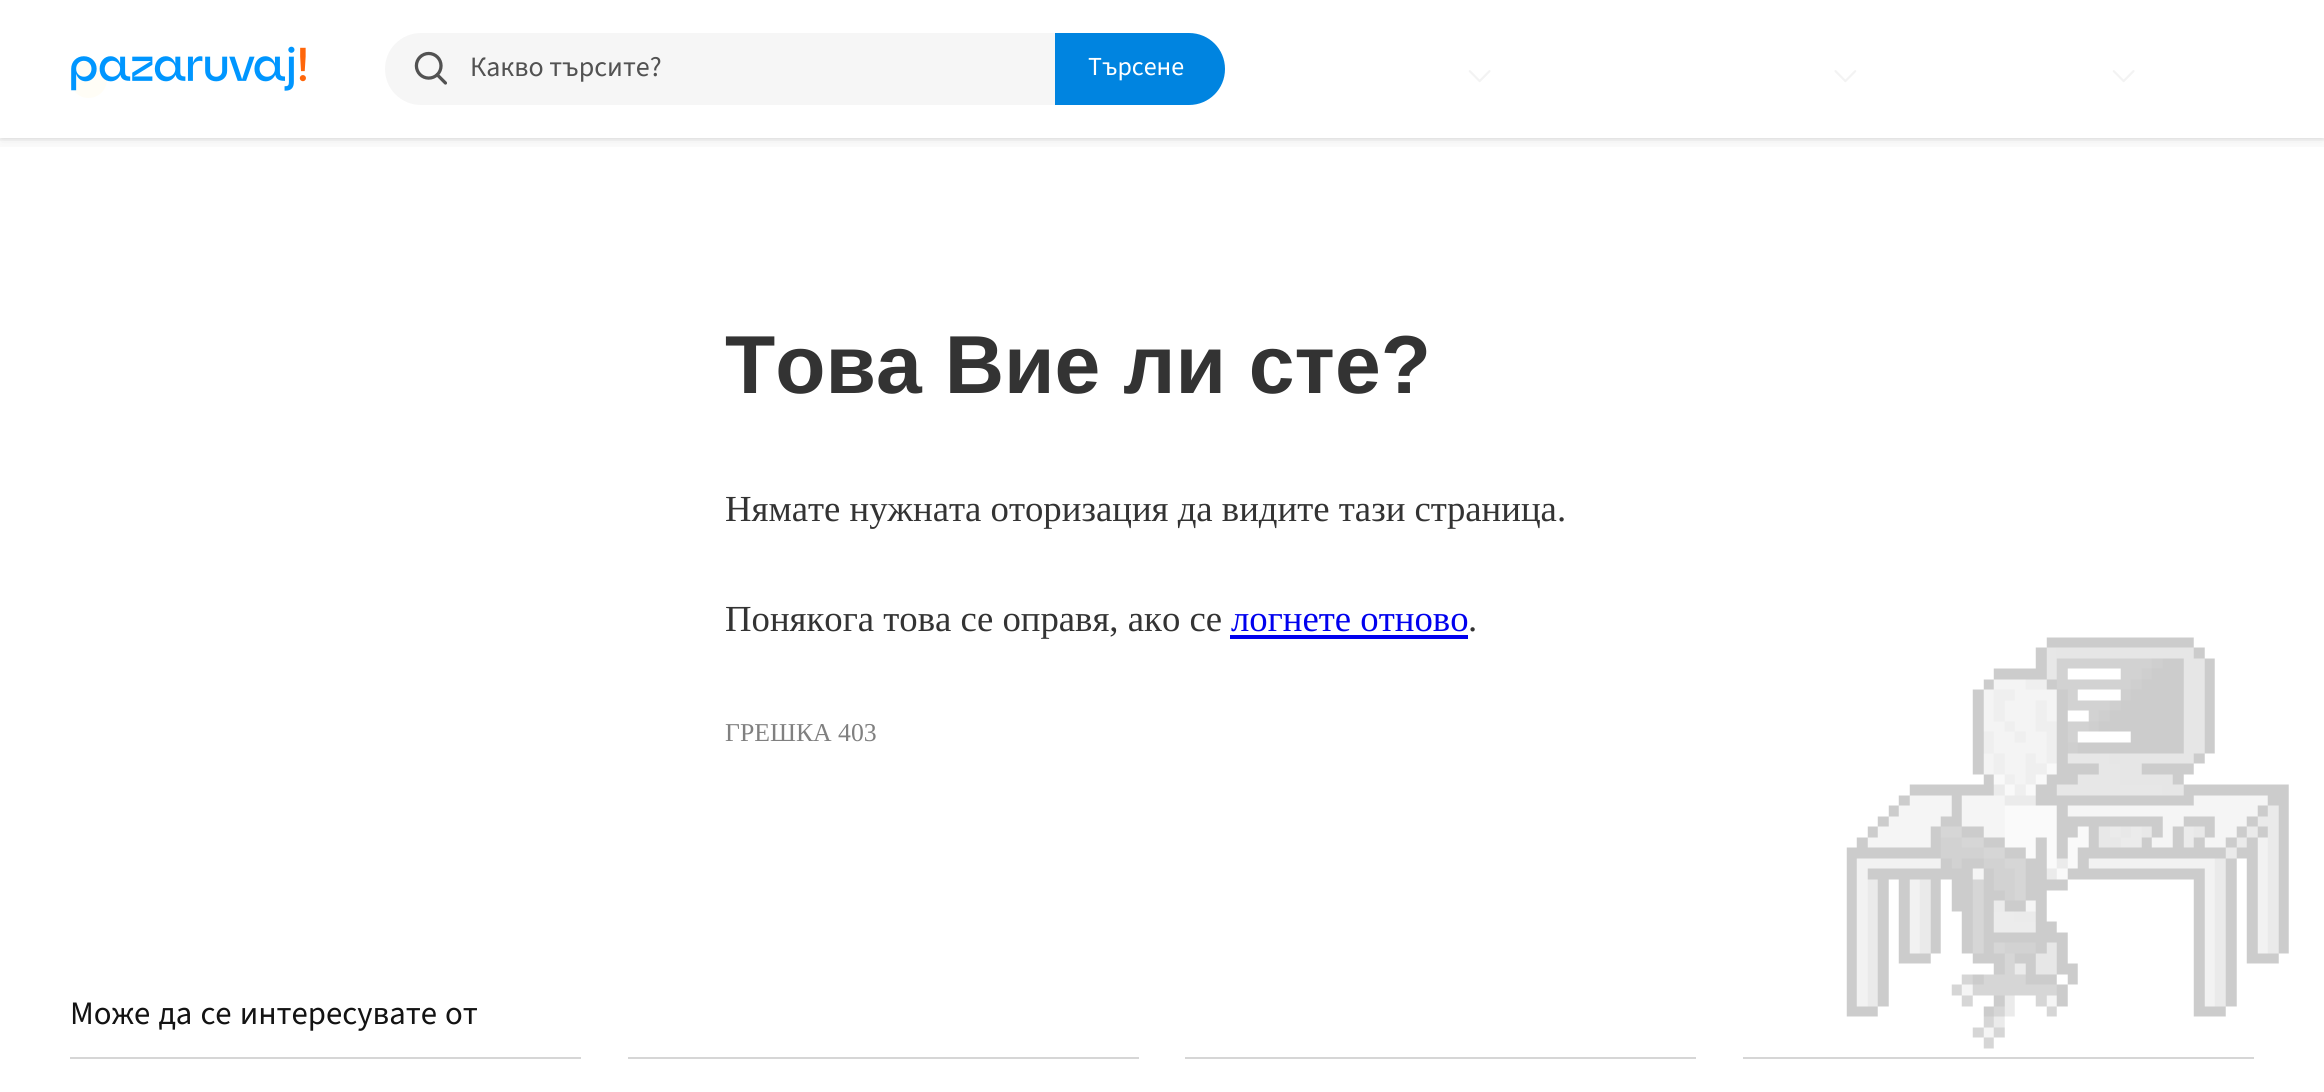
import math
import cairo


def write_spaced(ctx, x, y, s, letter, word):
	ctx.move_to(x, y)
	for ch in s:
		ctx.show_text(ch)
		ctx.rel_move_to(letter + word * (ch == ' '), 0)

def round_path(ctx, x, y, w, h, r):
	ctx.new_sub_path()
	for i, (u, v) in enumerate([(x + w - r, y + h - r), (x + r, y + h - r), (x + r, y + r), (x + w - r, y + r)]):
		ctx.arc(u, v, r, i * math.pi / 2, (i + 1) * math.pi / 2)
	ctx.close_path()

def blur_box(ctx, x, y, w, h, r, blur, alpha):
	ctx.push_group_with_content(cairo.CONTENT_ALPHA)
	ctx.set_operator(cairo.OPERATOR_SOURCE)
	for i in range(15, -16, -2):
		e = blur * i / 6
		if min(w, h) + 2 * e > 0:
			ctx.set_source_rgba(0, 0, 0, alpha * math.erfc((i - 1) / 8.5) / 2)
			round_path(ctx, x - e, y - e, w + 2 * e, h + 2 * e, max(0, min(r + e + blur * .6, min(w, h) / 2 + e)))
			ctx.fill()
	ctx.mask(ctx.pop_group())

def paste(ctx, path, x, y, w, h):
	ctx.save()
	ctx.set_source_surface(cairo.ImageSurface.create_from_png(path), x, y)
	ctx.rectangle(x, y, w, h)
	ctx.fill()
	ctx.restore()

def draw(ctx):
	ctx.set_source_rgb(1, 1, 1)
	ctx.paint()
	ctx.set_source_rgb(1, 0.992, 0.961)
	ctx.arc(88.5, 79.5, 18.5, 0, 2 * math.pi)
	ctx.fill()
	paste(ctx, 'media/3.png', 1468, 70, 23, 13)
	paste(ctx, 'media/4.png', 1834, 70, 23, 13)
	paste(ctx, 'media/3.png', 2112, 70, 23, 13)
	ctx.save()
	ctx.rectangle(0, 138, 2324, 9)
	ctx.clip()
	ctx.set_source_rgb(0.078, 0.078, 0.078)
	blur_box(ctx, 0, 4, 2324, 138, 0, 7, 0.08)
	ctx.restore()
	ctx.save()
	ctx.rectangle(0, 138, 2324, 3)
	ctx.clip()
	ctx.set_source_rgb(0.078, 0.078, 0.078)
	blur_box(ctx, 0, 2, 2324, 138, 0, 2, 0.08)
	ctx.restore()
	paste(ctx, 'media/1.png', 71, 46, 235, 45)
	ctx.set_source_rgb(0.961, 0.961, 0.961)
	ctx.new_path()
	ctx.move_to(421, 33)
	ctx.line_to(1055, 33)
	ctx.line_to(1055, 105)
	ctx.line_to(421, 105)
	ctx.curve_to(401, 105, 385, 89, 385, 69)
	ctx.curve_to(385, 49, 401, 33, 421, 33)
	ctx.close_path()
	ctx.fill()
	paste(ctx, 'media/2.png', 414, 51, 33, 34)
	ctx.select_font_face('Source Sans 3')
	ctx.set_font_size(28)
	ctx.set_source_rgb(0.322, 0.322, 0.322)
	ctx.move_to(470, 76)
	ctx.show_text('Какво търсите?')
	ctx.set_source_rgb(0, 0.518, 0.878)
	ctx.new_path()
	ctx.move_to(1055, 33)
	ctx.line_to(1189, 33)
	ctx.curve_to(1209, 33, 1225, 49, 1225, 69)
	ctx.curve_to(1225, 89, 1209, 105, 1189, 105)
	ctx.line_to(1055, 105)
	ctx.close_path()
	ctx.fill()
	ctx.set_font_size(26)
	ctx.set_source_rgb(1, 1, 1)
	ctx.move_to(1088, 75)
	ctx.show_text('Търсене')
	ctx.select_font_face('Liberation Sans', cairo.FONT_SLANT_NORMAL, cairo.FONT_WEIGHT_BOLD)
	ctx.set_font_size(82.25)
	ctx.set_source_rgb(0.2, 0.2, 0.2)
	ctx.move_to(725, 393)
	ctx.show_text('Това Вие ли сте?')
	ctx.select_font_face('Liberation Serif')
	ctx.set_font_size(36.75)
	ctx.move_to(725, 521)
	ctx.show_text('Нямате нужната оторизация да видите тази страница.')
	ctx.move_to(725, 631)
	ctx.show_text('Понякога това се оправя, ако се')
	ctx.set_source_rgb(0, 0, 0.933)
	ctx.move_to(1231, 631)
	ctx.show_text('логнете отново')
	ctx.rectangle(1230, 635, 238, 4)
	ctx.fill()
	ctx.set_source_rgb(0.2, 0.2, 0.2)
	ctx.move_to(1468, 631)
	ctx.show_text('.')
	ctx.set_font_size(25.75)
	ctx.set_source_rgb(0.502, 0.502, 0.502)
	ctx.move_to(725, 741)
	ctx.show_text('ГРЕШКА 403')
	paste(ctx, 'media/5.png', 1846, 637, 443, 412)
	ctx.select_font_face('Source Sans 3')
	ctx.set_font_size(32.75)
	ctx.set_source_rgb(0.078, 0.078, 0.078)
	write_spaced(ctx, 70, 1024, 'Може да се интересувате от', 0, 1.5)
	ctx.set_source_rgb(0.839, 0.839, 0.839)
	ctx.rectangle(70, 1057, 511, 2)
	ctx.rectangle(628, 1057, 511, 2)
	ctx.rectangle(1185, 1057, 511, 2)
	ctx.rectangle(1743, 1057, 511, 2)
	ctx.fill()


surface = cairo.ImageSurface(cairo.FORMAT_RGB24, 2324, 1092)
ctx = cairo.Context(surface)
options = cairo.FontOptions()
options.set_hint_metrics(cairo.HINT_METRICS_OFF)
options.set_hint_style(cairo.HINT_STYLE_NONE)
ctx.set_font_options(options)
ctx.set_miter_limit(4)
draw(ctx)
surface.write_to_png('image.png')
